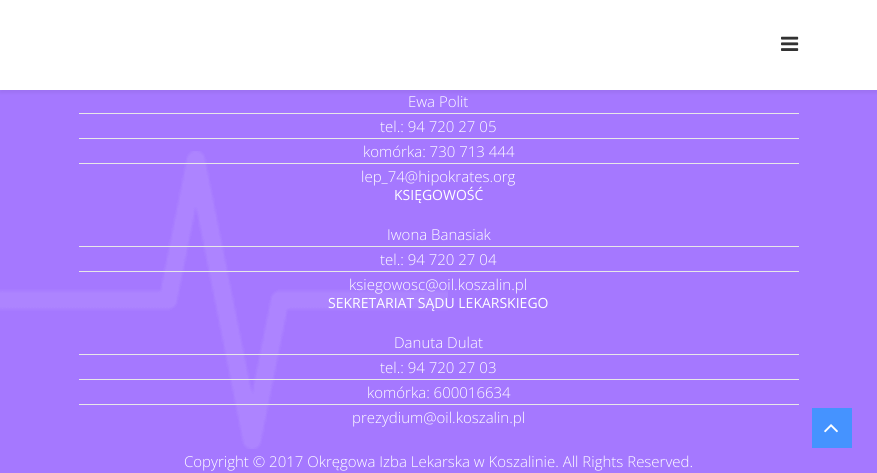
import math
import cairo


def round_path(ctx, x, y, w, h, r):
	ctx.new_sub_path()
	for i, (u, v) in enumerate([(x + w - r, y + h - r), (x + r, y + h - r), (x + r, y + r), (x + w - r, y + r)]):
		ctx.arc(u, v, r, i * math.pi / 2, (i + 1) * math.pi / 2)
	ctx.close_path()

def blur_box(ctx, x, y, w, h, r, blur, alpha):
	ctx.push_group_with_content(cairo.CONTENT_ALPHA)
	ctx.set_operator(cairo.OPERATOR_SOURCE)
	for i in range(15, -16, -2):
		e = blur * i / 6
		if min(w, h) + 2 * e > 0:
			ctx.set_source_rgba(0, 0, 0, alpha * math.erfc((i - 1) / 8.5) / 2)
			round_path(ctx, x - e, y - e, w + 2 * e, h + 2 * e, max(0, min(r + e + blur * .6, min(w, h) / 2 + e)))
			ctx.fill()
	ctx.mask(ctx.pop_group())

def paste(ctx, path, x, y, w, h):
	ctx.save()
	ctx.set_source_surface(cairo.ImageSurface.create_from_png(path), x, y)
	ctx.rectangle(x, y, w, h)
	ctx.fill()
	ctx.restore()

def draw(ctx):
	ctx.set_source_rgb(0.647, 0.471, 1)
	ctx.paint()
	ctx.set_source_rgb(0, 0, 0)
	blur_box(ctx, 0, 3, 877, 90, 0, 1.5, 0.05)
	ctx.set_source_rgb(1, 1, 1)
	ctx.rectangle(0, 0, 877, 90)
	ctx.fill()
	paste(ctx, 'media/1.png', 781, 36, 18, 15)
	ctx.set_source_rgb(0.91, 0.91, 0.91)
	ctx.rectangle(79, 113, 720, 1)
	ctx.fill()
	ctx.select_font_face('Open Sans Light')
	ctx.set_font_size(15)
	ctx.set_source_rgb(1, 1, 1)
	ctx.move_to(408, 107)
	ctx.show_text('Ewa Polit')
	ctx.set_source_rgb(0.91, 0.91, 0.91)
	ctx.rectangle(79, 138, 720, 1)
	ctx.fill()
	ctx.set_source_rgb(1, 1, 1)
	ctx.move_to(380, 132)
	ctx.show_text('tel.: 94 720 27 05')
	paste(ctx, 'media/2.png', 0, 151, 448, 298)
	ctx.set_source_rgb(0.91, 0.91, 0.91)
	ctx.rectangle(79, 163, 720, 1)
	ctx.fill()
	ctx.set_source_rgb(1, 1, 1)
	ctx.move_to(363, 157)
	ctx.show_text('komórka: 730 713 444')
	ctx.move_to(361, 182)
	ctx.show_text('lep_74@hipokrates.org')
	ctx.select_font_face('Open Sans')
	ctx.set_font_size(14)
	ctx.move_to(394, 200)
	ctx.show_text('KSIĘGOWOŚĆ')
	ctx.set_source_rgb(0.91, 0.91, 0.91)
	ctx.rectangle(79, 246, 720, 1)
	ctx.fill()
	ctx.select_font_face('Open Sans Light')
	ctx.set_font_size(15)
	ctx.set_source_rgb(1, 1, 1)
	ctx.move_to(387, 240)
	ctx.show_text('Iwona Banasiak')
	ctx.set_source_rgb(0.91, 0.91, 0.91)
	ctx.rectangle(79, 271, 720, 1)
	ctx.fill()
	ctx.set_source_rgb(1, 1, 1)
	ctx.move_to(380, 265)
	ctx.show_text('tel.: 94 720 27 04')
	ctx.move_to(349, 290)
	ctx.show_text('ksiegowosc@oil.koszalin.pl')
	ctx.select_font_face('Open Sans')
	ctx.set_font_size(14)
	ctx.move_to(328, 308)
	ctx.show_text('SEKRETARIAT SĄDU LEKARSKIEGO')
	ctx.set_source_rgb(0.91, 0.91, 0.91)
	ctx.rectangle(79, 354, 720, 1)
	ctx.fill()
	ctx.select_font_face('Open Sans Light')
	ctx.set_font_size(15)
	ctx.set_source_rgb(1, 1, 1)
	ctx.move_to(394, 348)
	ctx.show_text('Danuta Dulat')
	ctx.set_source_rgb(0.91, 0.91, 0.91)
	ctx.rectangle(79, 379, 720, 1)
	ctx.fill()
	ctx.set_source_rgb(1, 1, 1)
	ctx.move_to(380, 373)
	ctx.show_text('tel.: 94 720 27 03')
	ctx.set_source_rgb(0.91, 0.91, 0.91)
	ctx.rectangle(79, 404, 720, 1)
	ctx.fill()
	ctx.set_source_rgb(1, 1, 1)
	for x, y, s in [
		(367, 398, 'komórka: 600016634'),
		(352, 423, 'prezydium@oil.koszalin.pl'),
		(184, 467, 'Copyright © 2017 Okręgowa Izba Lekarska w Koszalinie. All Rights Reserved.'),
	]:
		ctx.move_to(x, y)
		ctx.show_text(s)
	ctx.set_source_rgb(0.271, 0.576, 1)
	ctx.rectangle(812, 408, 40, 40)
	ctx.fill()
	paste(ctx, 'media/3.png', 824, 424, 14, 9)


surface = cairo.ImageSurface(cairo.FORMAT_RGB24, 877, 473)
ctx = cairo.Context(surface)
options = cairo.FontOptions()
options.set_hint_metrics(cairo.HINT_METRICS_OFF)
options.set_hint_style(cairo.HINT_STYLE_NONE)
ctx.set_font_options(options)
ctx.set_miter_limit(4)
draw(ctx)
surface.write_to_png('image.png')
